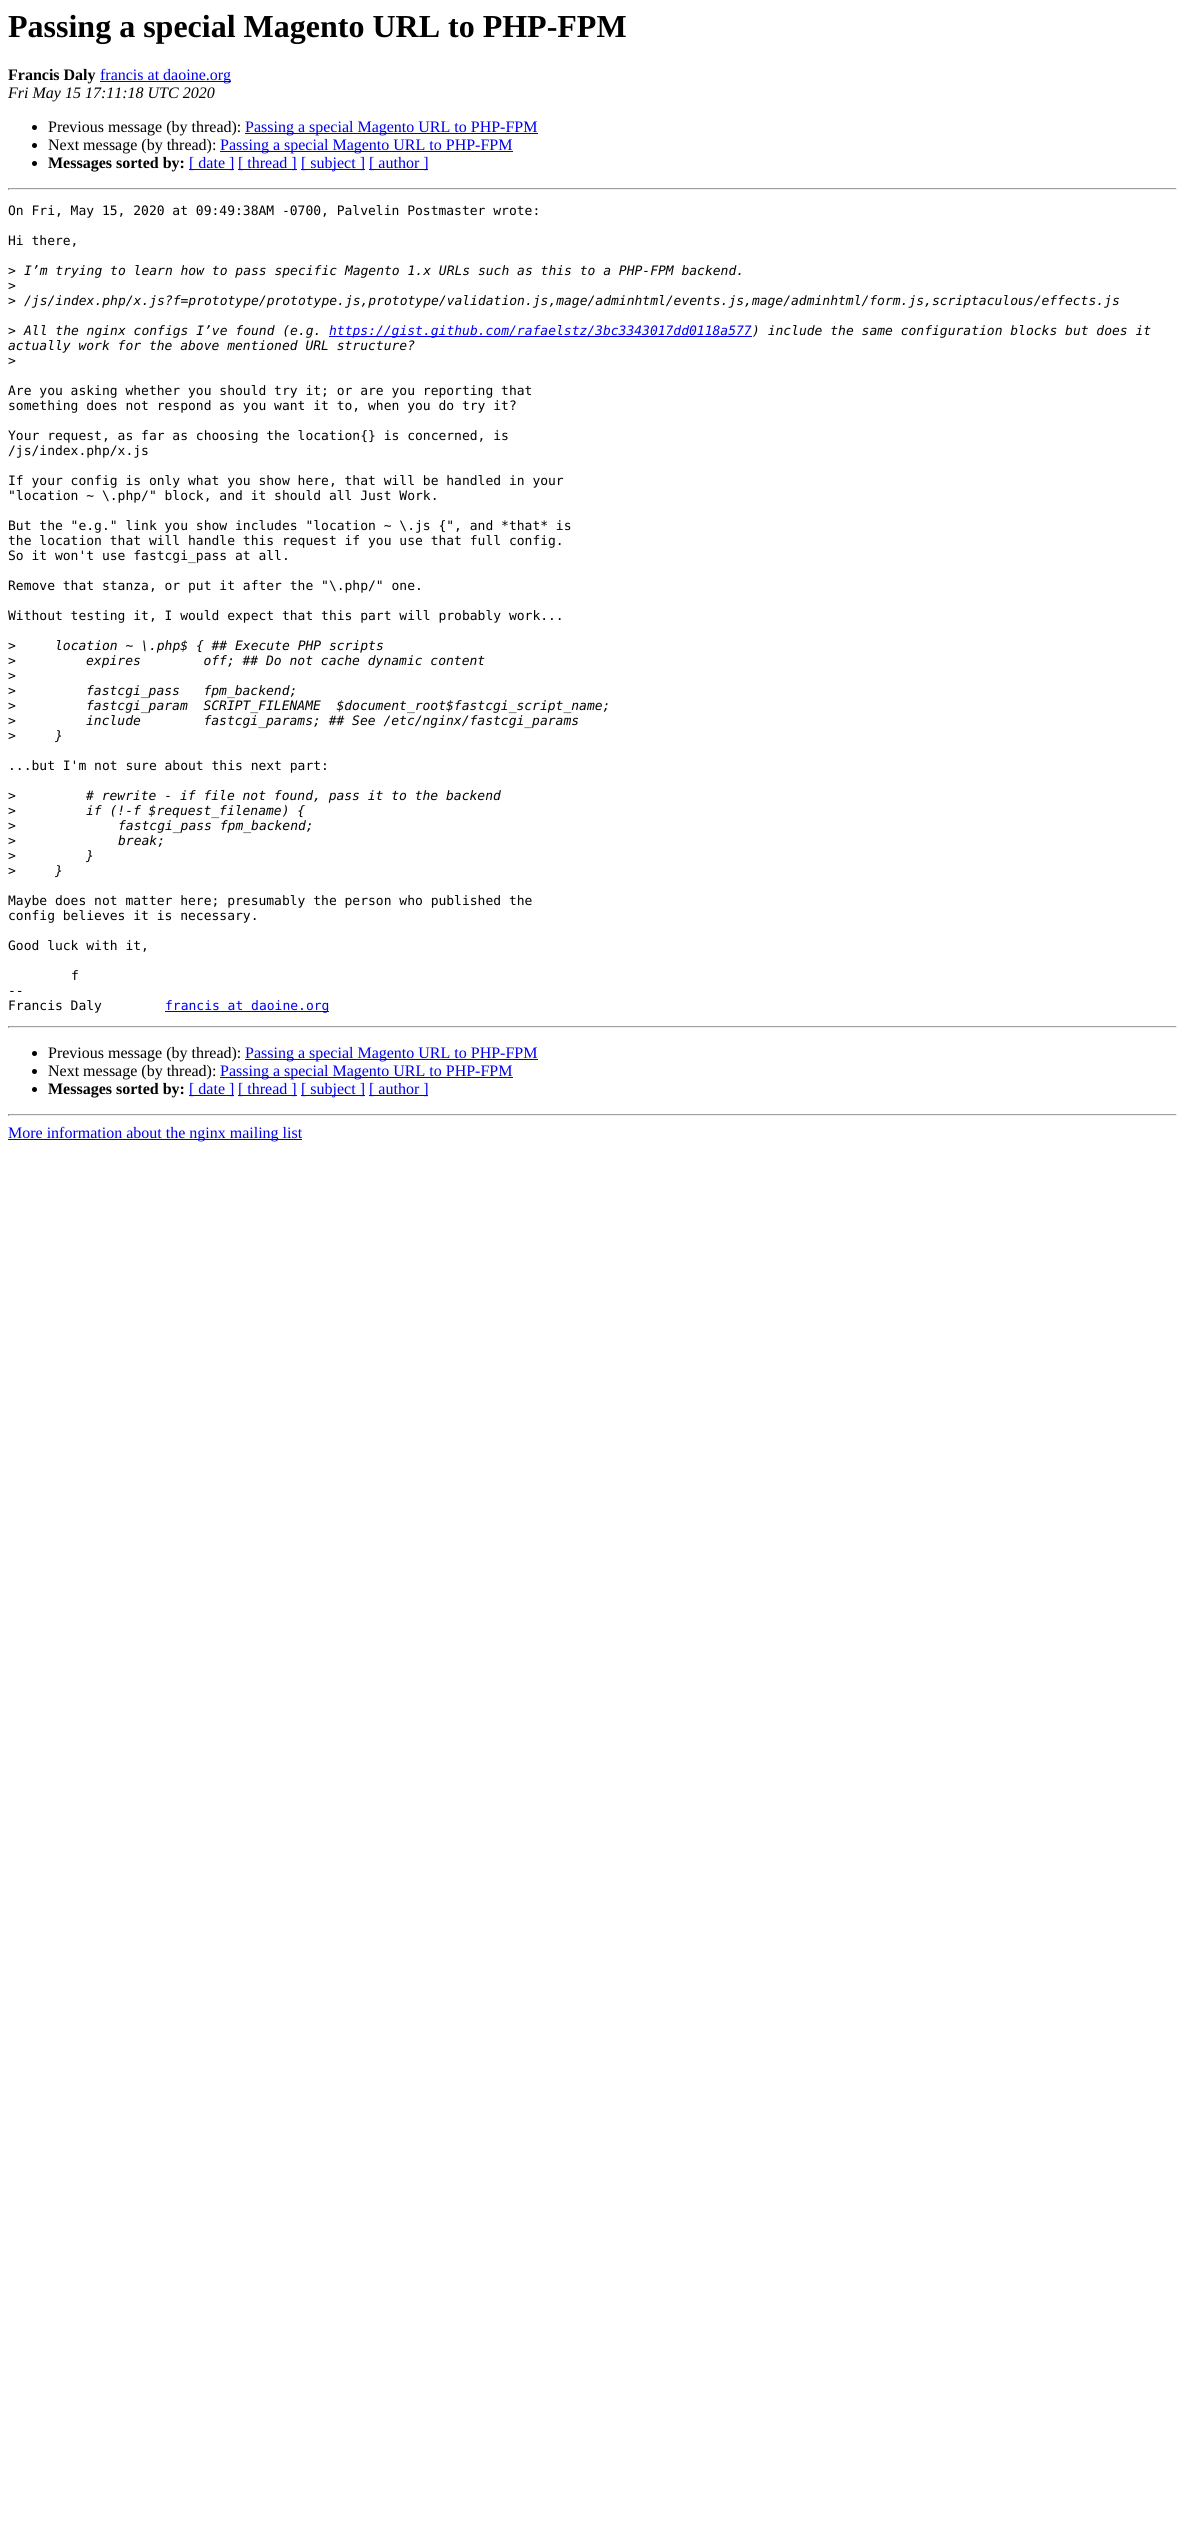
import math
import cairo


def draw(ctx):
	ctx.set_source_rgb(1, 1, 1)
	ctx.paint()
	ctx.select_font_face('Liberation Serif', cairo.FONT_SLANT_NORMAL, cairo.FONT_WEIGHT_BOLD)
	ctx.set_font_size(32)
	ctx.set_source_rgb(0, 0, 0)
	ctx.move_to(8, 37)
	ctx.show_text('Passing a special Magento URL to PHP-FPM')
	ctx.set_font_size(16)
	ctx.move_to(8, 80)
	ctx.show_text('Francis Daly')
	ctx.set_source_rgb(0, 0, 0.933)
	ctx.rectangle(100, 81, 131, 1)
	ctx.fill()
	ctx.select_font_face('Liberation Serif')
	ctx.move_to(100, 80)
	ctx.show_text('francis at daoine.org')
	ctx.select_font_face('Liberation Serif', cairo.FONT_SLANT_ITALIC)
	ctx.set_source_rgb(0, 0, 0)
	ctx.move_to(8, 98)
	ctx.show_text('Fri May 15 17:11:18 UTC 2020')
	ctx.new_path()
	ctx.arc(34.5, 127.5, 2.5, 0, 2 * math.pi)
	ctx.fill()
	ctx.select_font_face('Liberation Serif')
	ctx.move_to(48, 132)
	ctx.show_text('Previous message (by thread):')
	ctx.set_source_rgb(0, 0, 0.933)
	ctx.rectangle(245, 133, 293, 1)
	ctx.fill()
	ctx.move_to(245, 132)
	ctx.show_text('Passing a special Magento URL to PHP-FPM')
	ctx.set_source_rgb(0, 0, 0)
	ctx.new_path()
	ctx.arc(34.5, 145.5, 2.5, 0, 2 * math.pi)
	ctx.fill()
	ctx.move_to(48, 150)
	ctx.show_text('Next message (by thread):')
	ctx.set_source_rgb(0, 0, 0.933)
	ctx.rectangle(220, 151, 293, 1)
	ctx.fill()
	ctx.move_to(220, 150)
	ctx.show_text('Passing a special Magento URL to PHP-FPM')
	ctx.set_source_rgb(0, 0, 0)
	ctx.new_path()
	ctx.arc(34.5, 163.5, 2.5, 0, 2 * math.pi)
	ctx.fill()
	ctx.select_font_face('Liberation Serif', cairo.FONT_SLANT_NORMAL, cairo.FONT_WEIGHT_BOLD)
	ctx.move_to(48, 168)
	ctx.show_text('Messages sorted by:')
	ctx.set_source_rgb(0, 0, 0.933)
	ctx.rectangle(189, 169, 45, 1)
	ctx.fill()
	ctx.select_font_face('Liberation Serif')
	ctx.move_to(189, 168)
	ctx.show_text('[ date ]')
	ctx.rectangle(238, 169, 59, 1)
	ctx.fill()
	ctx.move_to(238, 168)
	ctx.show_text('[ thread ]')
	ctx.rectangle(301, 169, 64, 1)
	ctx.fill()
	ctx.move_to(301, 168)
	ctx.show_text('[ subject ]')
	ctx.rectangle(369, 169, 59, 1)
	ctx.fill()
	ctx.move_to(369, 168)
	ctx.show_text('[ author ]')
	ctx.set_source_rgb(0.624, 0.624, 0.624)
	ctx.rectangle(8, 188, 1169, 1)
	ctx.fill()
	ctx.set_source_rgb(0.933, 0.933, 0.933)
	ctx.rectangle(1176, 188, 1, 2)
	ctx.rectangle(8, 189, 1169, 1)
	ctx.fill()
	ctx.set_source_rgb(0.624, 0.624, 0.624)
	ctx.rectangle(8, 188, 1, 2)
	ctx.fill()
	ctx.select_font_face('DejaVu Sans Mono')
	ctx.set_font_size(13)
	ctx.set_source_rgb(0, 0, 0)
	for x, y, s in [
		(8, 215, 'On Fri, May 15, 2020 at 09:49:38AM -0700, Palvelin Postmaster wrote:'),
		(8, 245, 'Hi there,'),
		(8, 275, '>'),
	]:
		ctx.move_to(x, y)
		ctx.show_text(s)
	ctx.select_font_face('DejaVu Sans Mono', cairo.FONT_SLANT_ITALIC)
	ctx.move_to(24, 275)
	ctx.show_text('I’m trying to learn how to pass specific Magento 1.x URLs such as this to a PHP-FPM backend.')
	ctx.select_font_face('DejaVu Sans Mono')
	ctx.move_to(8, 290)
	ctx.show_text('>')
	ctx.move_to(8, 305)
	ctx.show_text('>')
	ctx.select_font_face('DejaVu Sans Mono', cairo.FONT_SLANT_ITALIC)
	ctx.move_to(24, 305)
	ctx.show_text('/js/index.php/x.js?f=prototype/prototype.js,prototype/validation.js,mage/adminhtml/events.js,mage/adminhtml/form.js,scriptaculous/effects.js')
	ctx.select_font_face('DejaVu Sans Mono')
	ctx.move_to(8, 335)
	ctx.show_text('>')
	ctx.select_font_face('DejaVu Sans Mono', cairo.FONT_SLANT_ITALIC)
	ctx.move_to(24, 335)
	ctx.show_text('All the nginx configs I’ve found (e.g.')
	ctx.set_source_rgb(0, 0, 0.933)
	ctx.rectangle(329, 336, 423, 1)
	ctx.fill()
	ctx.move_to(329, 335)
	ctx.show_text('https://gist.github.com/rafaelstz/3bc3343017dd0118a577')
	ctx.set_source_rgb(0, 0, 0)
	ctx.move_to(752, 335)
	ctx.show_text(') include the same configuration blocks but does it')
	ctx.move_to(8, 350)
	ctx.show_text('actually work for the above mentioned URL structure?')
	ctx.select_font_face('DejaVu Sans Mono')
	for x, y, s in [
		(8, 365, '>'),
		(8, 395, 'Are you asking whether you should try it; or are you reporting that'),
		(8, 410, 'something does not respond as you want it to, when you do try it?'),
		(8, 440, 'Your request, as far as choosing the location{} is concerned, is'),
		(8, 455, '/js/index.php/x.js'),
		(8, 485, 'If your config is only what you show here, that will be handled in your'),
		(8, 500, '"location ~ \\.php/" block, and it should all Just Work.'),
		(8, 530, 'But the "e.g." link you show includes "location ~ \\.js {", and *that* is'),
		(8, 545, 'the location that will handle this request if you use that full config.'),
		(8, 560, 'So it won\'t use fastcgi_pass at all.'),
		(8, 590, 'Remove that stanza, or put it after the "\\.php/" one.'),
		(8, 620, 'Without testing it, I would expect that this part will probably work...'),
		(8, 650, '>'),
	]:
		ctx.move_to(x, y)
		ctx.show_text(s)
	ctx.select_font_face('DejaVu Sans Mono', cairo.FONT_SLANT_ITALIC)
	ctx.move_to(55, 650)
	ctx.show_text('location ~ \\.php$ { ## Execute PHP scripts')
	ctx.select_font_face('DejaVu Sans Mono')
	ctx.move_to(8, 665)
	ctx.show_text('>')
	ctx.select_font_face('DejaVu Sans Mono', cairo.FONT_SLANT_ITALIC)
	ctx.move_to(86, 665)
	ctx.show_text('expires        off; ## Do not cache dynamic content')
	ctx.select_font_face('DejaVu Sans Mono')
	ctx.move_to(8, 680)
	ctx.show_text('>')
	ctx.move_to(8, 695)
	ctx.show_text('>')
	ctx.select_font_face('DejaVu Sans Mono', cairo.FONT_SLANT_ITALIC)
	ctx.move_to(86, 695)
	ctx.show_text('fastcgi_pass   fpm_backend;')
	ctx.select_font_face('DejaVu Sans Mono')
	ctx.move_to(8, 710)
	ctx.show_text('>')
	ctx.select_font_face('DejaVu Sans Mono', cairo.FONT_SLANT_ITALIC)
	ctx.move_to(86, 710)
	ctx.show_text('fastcgi_param  SCRIPT_FILENAME  $document_root$fastcgi_script_name;')
	ctx.select_font_face('DejaVu Sans Mono')
	ctx.move_to(8, 725)
	ctx.show_text('>')
	ctx.select_font_face('DejaVu Sans Mono', cairo.FONT_SLANT_ITALIC)
	ctx.move_to(86, 725)
	ctx.show_text('include        fastcgi_params; ## See /etc/nginx/fastcgi_params')
	ctx.select_font_face('DejaVu Sans Mono')
	ctx.move_to(8, 740)
	ctx.show_text('>')
	ctx.select_font_face('DejaVu Sans Mono', cairo.FONT_SLANT_ITALIC)
	ctx.move_to(55, 740)
	ctx.show_text('}')
	ctx.select_font_face('DejaVu Sans Mono')
	ctx.move_to(8, 770)
	ctx.show_text('...but I\'m not sure about this next part:')
	ctx.move_to(8, 800)
	ctx.show_text('>')
	ctx.select_font_face('DejaVu Sans Mono', cairo.FONT_SLANT_ITALIC)
	ctx.move_to(86, 800)
	ctx.show_text('# rewrite - if file not found, pass it to the backend')
	ctx.select_font_face('DejaVu Sans Mono')
	ctx.move_to(8, 815)
	ctx.show_text('>')
	ctx.select_font_face('DejaVu Sans Mono', cairo.FONT_SLANT_ITALIC)
	ctx.move_to(86, 815)
	ctx.show_text('if (!-f $request_filename) {')
	ctx.select_font_face('DejaVu Sans Mono')
	ctx.move_to(8, 830)
	ctx.show_text('>')
	ctx.select_font_face('DejaVu Sans Mono', cairo.FONT_SLANT_ITALIC)
	ctx.move_to(118, 830)
	ctx.show_text('fastcgi_pass fpm_backend;')
	ctx.select_font_face('DejaVu Sans Mono')
	ctx.move_to(8, 845)
	ctx.show_text('>')
	ctx.select_font_face('DejaVu Sans Mono', cairo.FONT_SLANT_ITALIC)
	ctx.move_to(118, 845)
	ctx.show_text('break;')
	ctx.select_font_face('DejaVu Sans Mono')
	ctx.move_to(8, 860)
	ctx.show_text('>')
	ctx.select_font_face('DejaVu Sans Mono', cairo.FONT_SLANT_ITALIC)
	ctx.move_to(86, 860)
	ctx.show_text('}')
	ctx.select_font_face('DejaVu Sans Mono')
	ctx.move_to(8, 875)
	ctx.show_text('>')
	ctx.select_font_face('DejaVu Sans Mono', cairo.FONT_SLANT_ITALIC)
	ctx.move_to(55, 875)
	ctx.show_text('}')
	ctx.select_font_face('DejaVu Sans Mono')
	for x, y, s in [
		(8, 905, 'Maybe does not matter here; presumably the person who published the'),
		(8, 920, 'config believes it is necessary.'),
		(8, 950, 'Good luck with it,'),
		(71, 980, 'f'),
		(8, 995, '--'),
		(8, 1010, 'Francis Daly'),
	]:
		ctx.move_to(x, y)
		ctx.show_text(s)
	ctx.set_source_rgb(0, 0, 0.933)
	ctx.rectangle(165, 1011, 164, 1)
	ctx.fill()
	ctx.move_to(165, 1010)
	ctx.show_text('francis at daoine.org')
	ctx.set_source_rgb(0.624, 0.624, 0.624)
	ctx.rectangle(8, 1026, 1169, 1)
	ctx.fill()
	ctx.set_source_rgb(0.933, 0.933, 0.933)
	ctx.rectangle(1176, 1026, 1, 2)
	ctx.rectangle(8, 1027, 1169, 1)
	ctx.fill()
	ctx.set_source_rgb(0.624, 0.624, 0.624)
	ctx.rectangle(8, 1026, 1, 2)
	ctx.fill()
	ctx.set_source_rgb(0, 0, 0)
	ctx.arc(34.5, 1053.5, 2.5, 0, 2 * math.pi)
	ctx.fill()
	ctx.select_font_face('Liberation Serif')
	ctx.set_font_size(16)
	ctx.move_to(48, 1058)
	ctx.show_text('Previous message (by thread):')
	ctx.set_source_rgb(0, 0, 0.933)
	ctx.rectangle(245, 1059, 293, 1)
	ctx.fill()
	ctx.move_to(245, 1058)
	ctx.show_text('Passing a special Magento URL to PHP-FPM')
	ctx.set_source_rgb(0, 0, 0)
	ctx.new_path()
	ctx.arc(34.5, 1071.5, 2.5, 0, 2 * math.pi)
	ctx.fill()
	ctx.move_to(48, 1076)
	ctx.show_text('Next message (by thread):')
	ctx.set_source_rgb(0, 0, 0.933)
	ctx.rectangle(220, 1077, 293, 1)
	ctx.fill()
	ctx.move_to(220, 1076)
	ctx.show_text('Passing a special Magento URL to PHP-FPM')
	ctx.set_source_rgb(0, 0, 0)
	ctx.new_path()
	ctx.arc(34.5, 1089.5, 2.5, 0, 2 * math.pi)
	ctx.fill()
	ctx.select_font_face('Liberation Serif', cairo.FONT_SLANT_NORMAL, cairo.FONT_WEIGHT_BOLD)
	ctx.move_to(48, 1094)
	ctx.show_text('Messages sorted by:')
	ctx.set_source_rgb(0, 0, 0.933)
	ctx.rectangle(189, 1095, 45, 1)
	ctx.fill()
	ctx.select_font_face('Liberation Serif')
	ctx.move_to(189, 1094)
	ctx.show_text('[ date ]')
	ctx.rectangle(238, 1095, 59, 1)
	ctx.fill()
	ctx.move_to(238, 1094)
	ctx.show_text('[ thread ]')
	ctx.rectangle(301, 1095, 64, 1)
	ctx.fill()
	ctx.move_to(301, 1094)
	ctx.show_text('[ subject ]')
	ctx.rectangle(369, 1095, 59, 1)
	ctx.fill()
	ctx.move_to(369, 1094)
	ctx.show_text('[ author ]')
	ctx.set_source_rgb(0.624, 0.624, 0.624)
	ctx.rectangle(8, 1114, 1169, 1)
	ctx.fill()
	ctx.set_source_rgb(0.933, 0.933, 0.933)
	ctx.rectangle(1176, 1114, 1, 2)
	ctx.rectangle(8, 1115, 1169, 1)
	ctx.fill()
	ctx.set_source_rgb(0.624, 0.624, 0.624)
	ctx.rectangle(8, 1114, 1, 2)
	ctx.fill()
	ctx.set_source_rgb(0, 0, 0.933)
	ctx.rectangle(8, 1139, 294, 1)
	ctx.fill()
	ctx.move_to(8, 1138)
	ctx.show_text('More information about the nginx mailing list')


surface = cairo.ImageSurface(cairo.FORMAT_RGB24, 1185, 2538)
ctx = cairo.Context(surface)
options = cairo.FontOptions()
options.set_hint_metrics(cairo.HINT_METRICS_OFF)
options.set_hint_style(cairo.HINT_STYLE_NONE)
ctx.set_font_options(options)
ctx.set_miter_limit(4)
draw(ctx)
surface.write_to_png('image.png')
